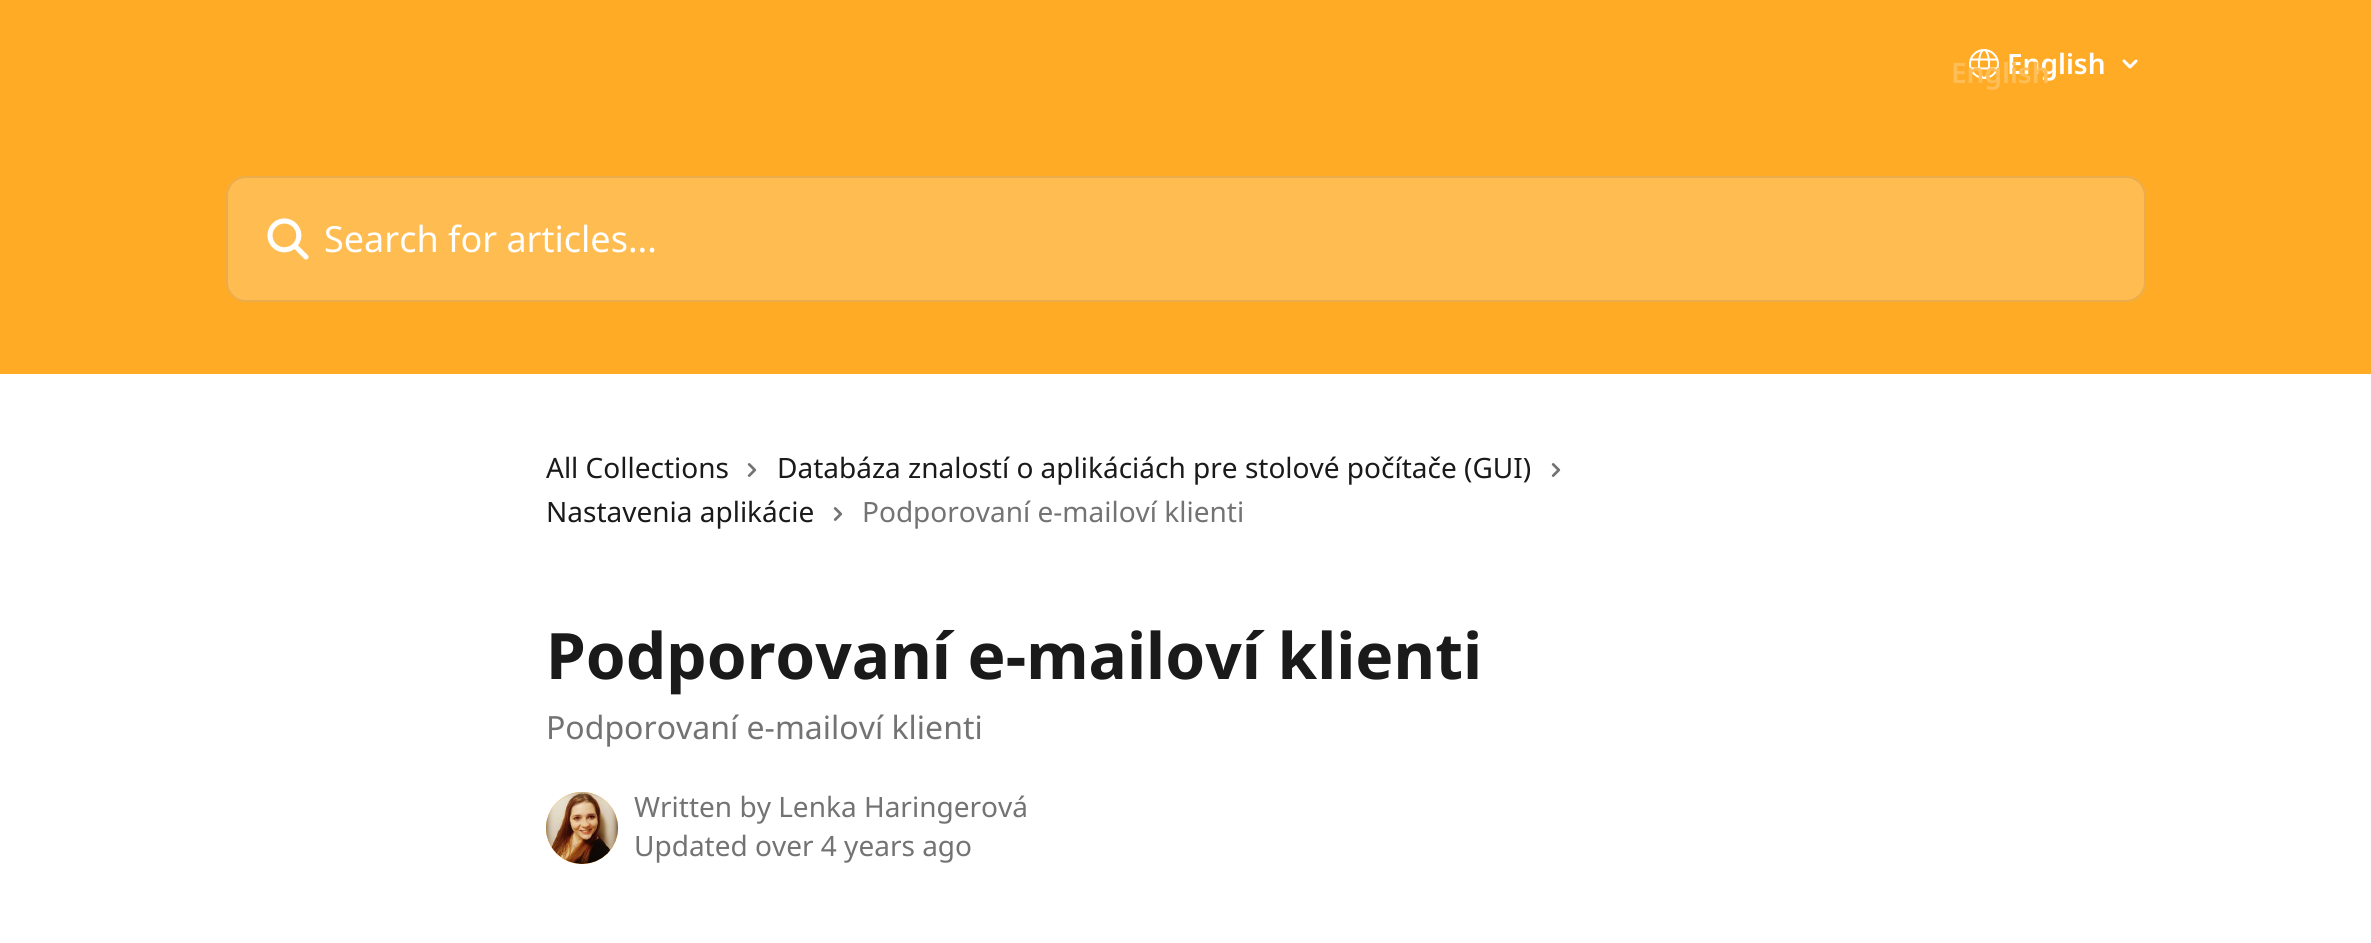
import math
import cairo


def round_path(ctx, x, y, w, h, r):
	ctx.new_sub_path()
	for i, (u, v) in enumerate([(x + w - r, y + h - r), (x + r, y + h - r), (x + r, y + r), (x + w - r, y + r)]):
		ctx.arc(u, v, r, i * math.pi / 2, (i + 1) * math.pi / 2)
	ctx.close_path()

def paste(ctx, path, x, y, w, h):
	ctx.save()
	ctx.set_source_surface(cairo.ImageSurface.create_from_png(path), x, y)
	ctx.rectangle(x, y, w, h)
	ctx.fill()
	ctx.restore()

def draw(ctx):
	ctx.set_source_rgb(1, 1, 1)
	ctx.paint()
	ctx.set_source_rgb(1, 0.671, 0.149)
	ctx.rectangle(0, 0, 2371, 374)
	ctx.fill()
	paste(ctx, 'media/1.png', 1969, 49, 30, 30)
	ctx.select_font_face('Noto Sans SemiBold')
	ctx.set_font_size(28)
	ctx.set_source_rgb(1, 1, 1)
	ctx.move_to(2007, 74)
	ctx.show_text('English')
	ctx.set_source_rgb(1, 0.745, 0.341)
	ctx.move_to(1951, 83)
	ctx.show_text('English')
	ctx.new_path()
	ctx.move_to(2124, 61)
	ctx.line_to(2130, 67)
	ctx.line_to(2136, 61)
	ctx.set_source_rgb(1, 1, 1)
	ctx.set_line_width(3)
	ctx.set_line_cap(cairo.LINE_CAP_ROUND)
	ctx.set_line_join(cairo.LINE_JOIN_ROUND)
	ctx.stroke()
	ctx.set_source_rgba(1, 1, 1, 0.2)
	round_path(ctx, 226, 176, 1920, 126, 20)
	ctx.fill()
	round_path(ctx, 227, 177, 1918, 124, 19)
	ctx.set_source_rgba(0, 0, 0, 0.08)
	ctx.set_line_width(2)
	ctx.set_line_cap(cairo.LINE_CAP_BUTT)
	ctx.set_line_join(cairo.LINE_JOIN_MITER)
	ctx.stroke()
	paste(ctx, 'media/2.png', 267, 218, 42, 42)
	ctx.select_font_face('Noto Sans')
	ctx.set_font_size(36)
	ctx.set_source_rgb(1, 1, 1)
	ctx.move_to(324, 252)
	ctx.show_text('Search for articles...')
	ctx.set_font_size(28)
	ctx.set_source_rgb(0.102, 0.102, 0.102)
	ctx.move_to(546, 478)
	ctx.show_text('All Collections')
	paste(ctx, 'media/3.png', 747, 463, 10, 14)
	ctx.move_to(777, 478)
	ctx.show_text('Databáza znalostí o aplikáciách pre stolové počítače (GUI)')
	paste(ctx, 'media/3.png', 1551, 463, 10, 14)
	ctx.move_to(546, 522)
	ctx.show_text('Nastavenia aplikácie')
	paste(ctx, 'media/3.png', 833, 507, 10, 14)
	ctx.set_source_rgb(0.451, 0.451, 0.451)
	ctx.move_to(862, 522)
	ctx.show_text('Podporovaní e-mailoví klienti')
	ctx.select_font_face('Noto Sans', cairo.FONT_SLANT_NORMAL, cairo.FONT_WEIGHT_BOLD)
	ctx.set_font_size(64)
	ctx.set_source_rgb(0.102, 0.102, 0.102)
	ctx.move_to(546, 679)
	ctx.show_text('Podporovaní e-mailoví klienti')
	ctx.select_font_face('Noto Sans')
	ctx.set_font_size(32)
	ctx.set_source_rgb(0.451, 0.451, 0.451)
	ctx.move_to(546, 739)
	ctx.show_text('Podporovaní e-mailoví klienti')
	ctx.set_source_rgb(1, 0.671, 0.141)
	ctx.new_path()
	ctx.arc(582, 828, 36, 0, 2 * math.pi)
	ctx.fill()
	paste(ctx, 'media/4.png', 546, 792, 72, 72)
	ctx.set_font_size(28)
	ctx.set_source_rgb(0.451, 0.451, 0.451)
	ctx.move_to(634, 817)
	ctx.show_text('Written by Lenka Haringerová')
	ctx.move_to(634, 856)
	ctx.show_text('Updated over 4 years ago')


surface = cairo.ImageSurface(cairo.FORMAT_RGB24, 2371, 943)
ctx = cairo.Context(surface)
options = cairo.FontOptions()
options.set_hint_metrics(cairo.HINT_METRICS_OFF)
options.set_hint_style(cairo.HINT_STYLE_NONE)
ctx.set_font_options(options)
ctx.set_miter_limit(4)
draw(ctx)
surface.write_to_png('image.png')
